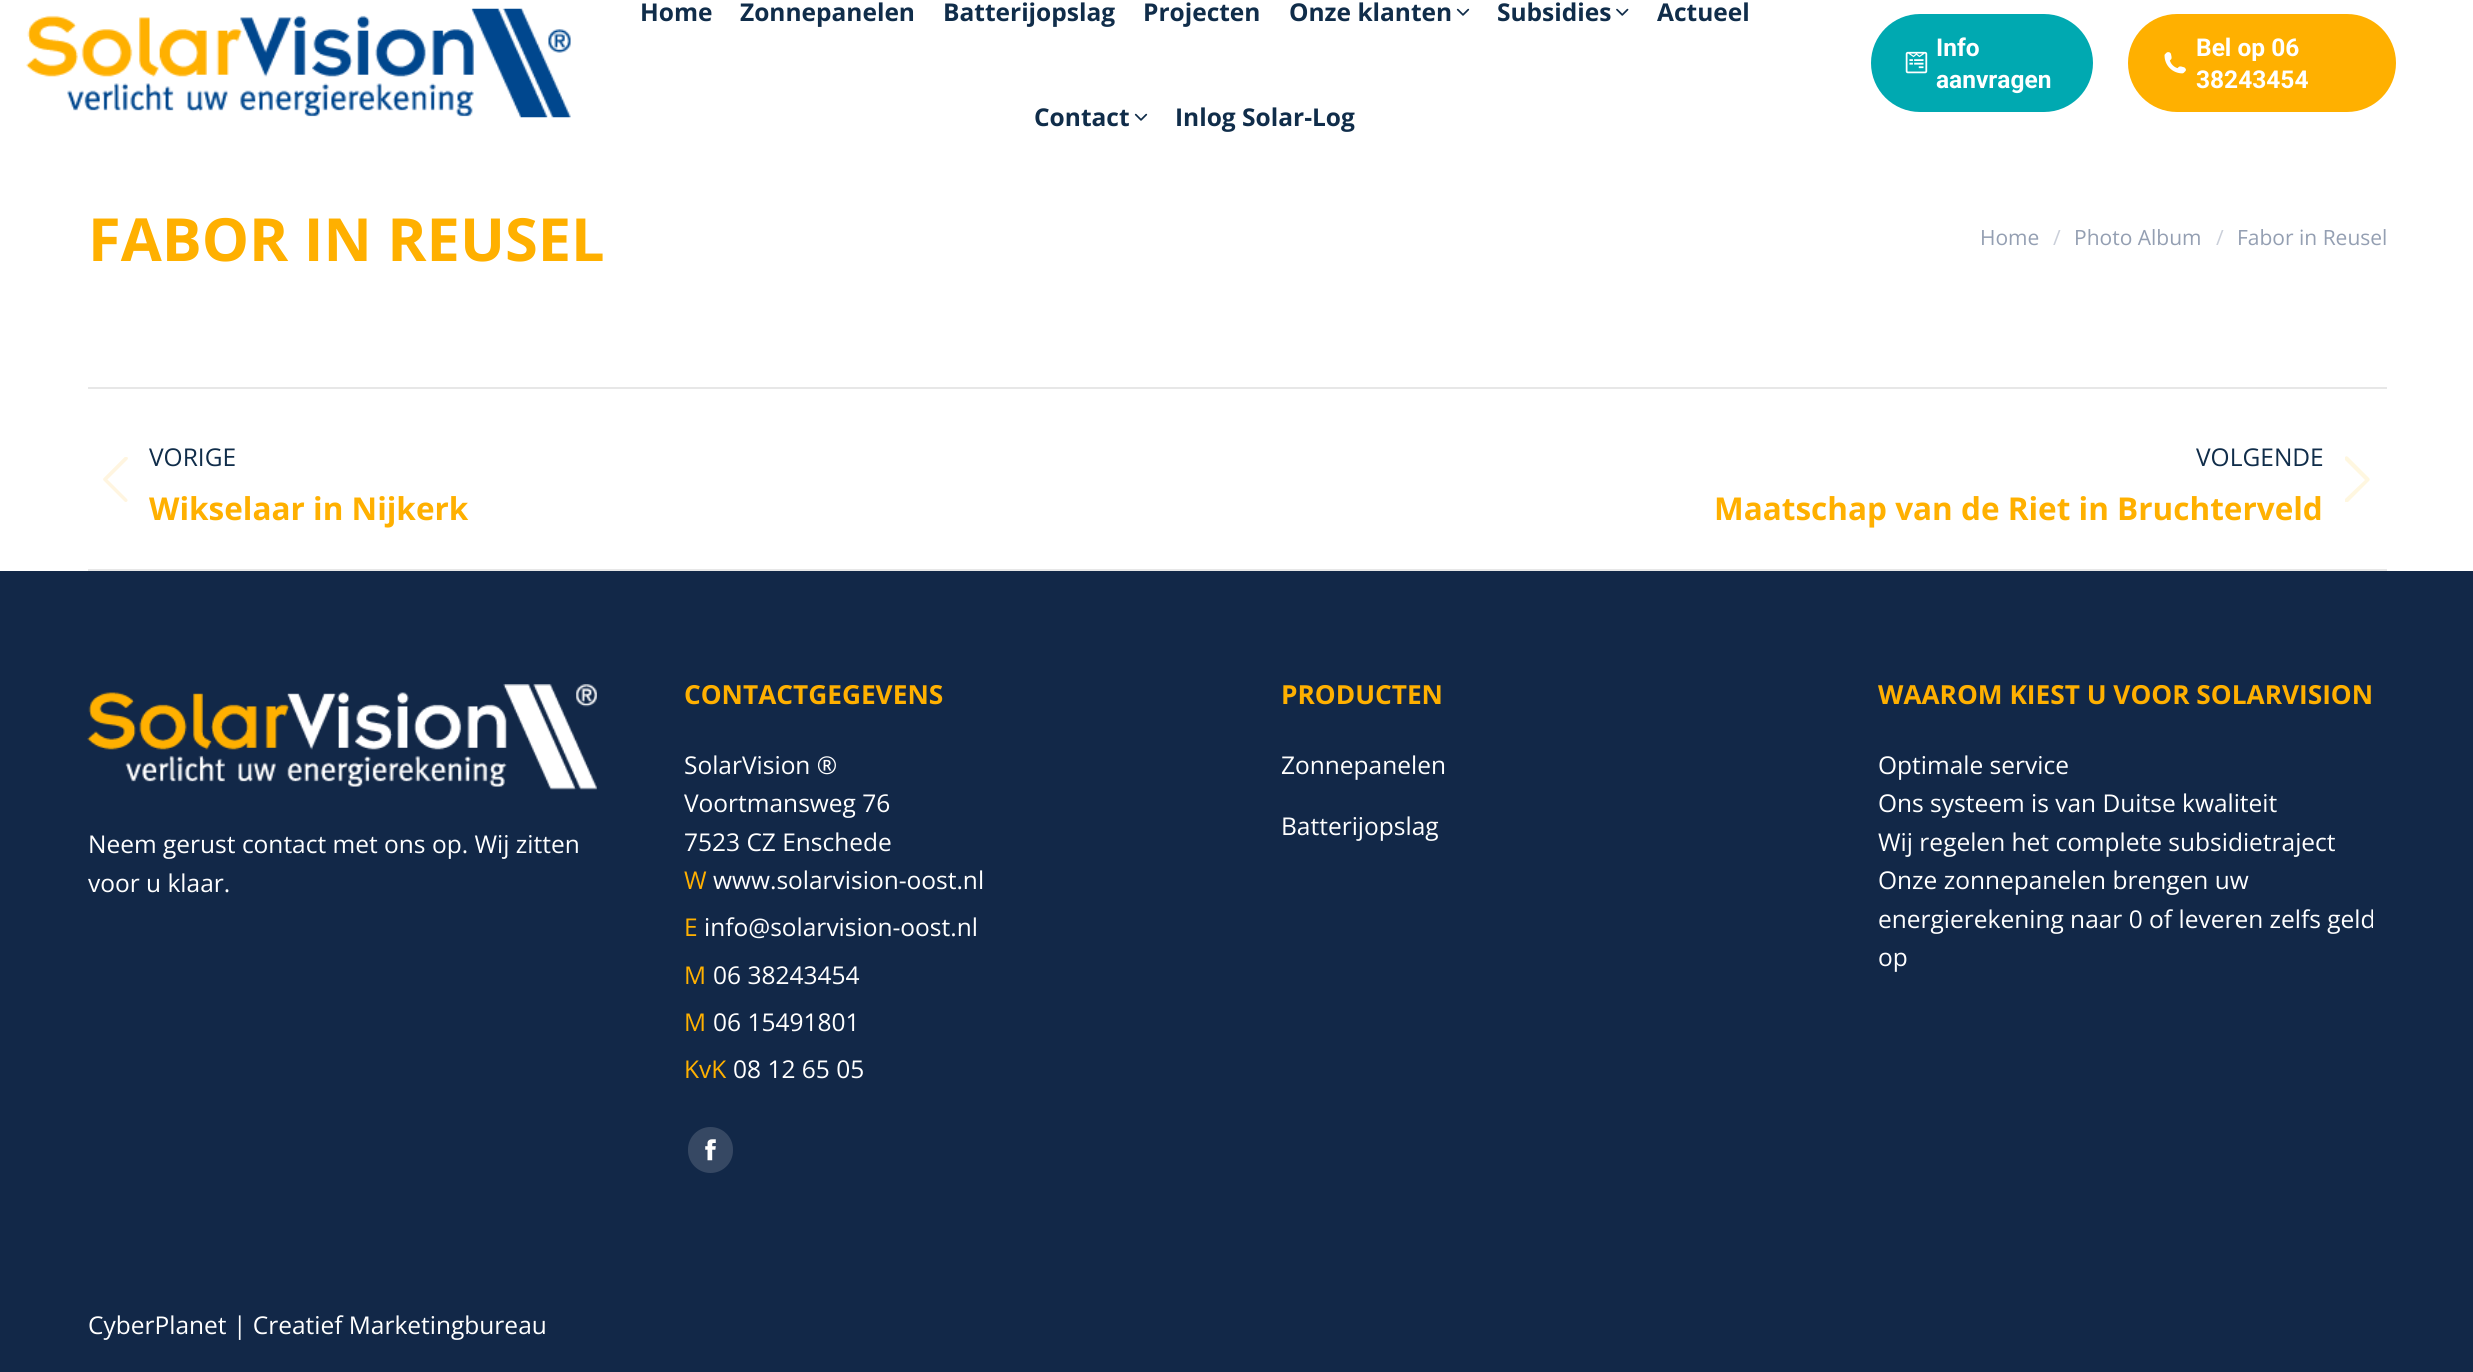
import math
import cairo


def round_path(ctx, x, y, w, h, r):
	ctx.new_sub_path()
	for i, (u, v) in enumerate([(x + w - r, y + h - r), (x + r, y + h - r), (x + r, y + r), (x + w - r, y + r)]):
		ctx.arc(u, v, r, i * math.pi / 2, (i + 1) * math.pi / 2)
	ctx.close_path()

def paste(ctx, path, x, y, w, h):
	ctx.save()
	ctx.set_source_surface(cairo.ImageSurface.create_from_png(path), x, y)
	ctx.rectangle(x, y, w, h)
	ctx.fill()
	ctx.restore()

def draw(ctx):
	ctx.set_source_rgb(1, 1, 1)
	ctx.paint()
	paste(ctx, 'media/1.png', 26, 8, 545, 110)
	ctx.select_font_face('Open Sans', cairo.FONT_SLANT_NORMAL, cairo.FONT_WEIGHT_BOLD)
	ctx.set_font_size(24.5)
	ctx.set_source_rgb(0.063, 0.176, 0.29)
	for x, y, s in [
		(640, 21, 'Home'),
		(740, 21, 'Zonnepanelen'),
		(943, 21, 'Batterijopslag'),
		(1143, 21, 'Projecten'),
		(1289, 21, 'Onze klanten'),
	]:
		ctx.move_to(x, y)
		ctx.show_text(s)
	paste(ctx, 'media/2.png', 1456, 8, 14, 8)
	ctx.move_to(1497, 21)
	ctx.show_text('Subsidies')
	paste(ctx, 'media/3.png', 1616, 8, 13, 8)
	ctx.move_to(1657, 21)
	ctx.show_text('Actueel')
	ctx.move_to(1034, 126)
	ctx.show_text('Contact')
	paste(ctx, 'media/2.png', 1134, 113, 14, 8)
	ctx.move_to(1175, 126)
	ctx.show_text('Inlog Solar-Log')
	ctx.set_source_rgb(0, 0.663, 0.694)
	round_path(ctx, 1871, 14, 222, 98, 49)
	ctx.fill()
	paste(ctx, 'media/4.png', 1905, 51, 23, 23)
	ctx.select_font_face('Roboto', cairo.FONT_SLANT_NORMAL, cairo.FONT_WEIGHT_BOLD)
	ctx.set_source_rgb(1, 1, 1)
	ctx.move_to(1936, 56)
	ctx.show_text('Info')
	ctx.move_to(1936, 88)
	ctx.show_text('aanvragen')
	ctx.set_source_rgb(1, 0.69, 0)
	round_path(ctx, 2128, 14, 268, 98, 49)
	ctx.fill()
	paste(ctx, 'media/5.png', 2164, 52, 22, 22)
	ctx.set_source_rgb(1, 1, 1)
	ctx.move_to(2196, 56)
	ctx.show_text('Bel op 06')
	ctx.move_to(2196, 88)
	ctx.show_text('38243454')
	ctx.select_font_face('Open Sans', cairo.FONT_SLANT_NORMAL, cairo.FONT_WEIGHT_BOLD)
	ctx.set_font_size(59.5)
	ctx.set_source_rgb(1, 0.69, 0)
	ctx.move_to(88, 261)
	ctx.show_text('FABOR IN REUSEL')
	ctx.select_font_face('Open Sans')
	ctx.set_font_size(21)
	ctx.set_source_rgb(0.58, 0.624, 0.698)
	ctx.move_to(1980, 245)
	ctx.show_text('Home')
	ctx.set_source_rgb(0.792, 0.812, 0.851)
	ctx.move_to(2053, 245)
	ctx.show_text('/')
	ctx.set_source_rgb(0.58, 0.624, 0.698)
	ctx.move_to(2074, 245)
	ctx.show_text('Photo Album')
	ctx.set_source_rgb(0.792, 0.812, 0.851)
	ctx.move_to(2216, 245)
	ctx.show_text('/')
	ctx.set_source_rgb(0.58, 0.624, 0.698)
	ctx.move_to(2237, 245)
	ctx.show_text('Fabor in Reusel')
	ctx.set_source_rgb(0.906, 0.906, 0.906)
	ctx.rectangle(88, 387, 2299, 2)
	ctx.fill()
	ctx.rectangle(88, 569, 2299, 2)
	ctx.fill()
	paste(ctx, 'media/6.png', 103, 457, 25, 45)
	ctx.set_font_size(24.5)
	ctx.set_source_rgb(0.063, 0.176, 0.29)
	ctx.move_to(149, 466)
	ctx.show_text('VORIGE')
	ctx.select_font_face('Open Sans', cairo.FONT_SLANT_NORMAL, cairo.FONT_WEIGHT_BOLD)
	ctx.set_font_size(31.5)
	ctx.set_source_rgb(1, 0.69, 0)
	ctx.move_to(149, 520)
	ctx.show_text('Wikselaar in Nijkerk')
	ctx.select_font_face('Open Sans')
	ctx.set_font_size(24.5)
	ctx.set_source_rgb(0.063, 0.176, 0.29)
	ctx.move_to(2196, 466)
	ctx.show_text('VOLGENDE')
	ctx.set_source_rgb(1, 0.965, 0.878)
	ctx.new_path()
	ctx.move_to(2345, 457)
	ctx.curve_to(2346, 456, 2347, 456, 2348, 457)
	ctx.line_to(2369, 478)
	ctx.curve_to(2370, 479, 2370, 480, 2369, 481)
	ctx.line_to(2348, 502)
	ctx.curve_to(2347, 502, 2346, 502, 2345, 502)
	ctx.curve_to(2345, 501, 2345, 500, 2345, 499)
	ctx.line_to(2365, 480)
	ctx.line_to(2345, 460)
	ctx.close_path()
	ctx.fill()
	ctx.select_font_face('Open Sans', cairo.FONT_SLANT_NORMAL, cairo.FONT_WEIGHT_BOLD)
	ctx.set_font_size(31.5)
	ctx.set_source_rgb(1, 0.69, 0)
	ctx.move_to(1714, 520)
	ctx.show_text('Maatschap van de Riet in Bruchterveld')
	ctx.set_source_rgb(0.071, 0.157, 0.282)
	ctx.rectangle(0, 571, 2473, 801)
	ctx.fill()
	paste(ctx, 'media/7.png', 87, 684, 510, 106)
	ctx.select_font_face('Open Sans')
	ctx.set_font_size(24.5)
	ctx.set_source_rgb(1, 1, 1)
	ctx.move_to(88, 853)
	ctx.show_text('Neem gerust contact met ons op. Wij zitten')
	ctx.move_to(88, 892)
	ctx.show_text('voor u klaar.')
	ctx.select_font_face('Open Sans', cairo.FONT_SLANT_NORMAL, cairo.FONT_WEIGHT_BOLD)
	ctx.set_font_size(26.25)
	ctx.set_source_rgb(1, 0.69, 0)
	ctx.move_to(684, 704)
	ctx.show_text('CONTACTGEGEVENS')
	ctx.select_font_face('Open Sans')
	ctx.set_font_size(24.5)
	ctx.set_source_rgb(1, 1, 1)
	for x, y, s in [
		(684, 774, 'SolarVision ®'),
		(684, 812, 'Voortmansweg 76'),
		(684, 851, '7523 CZ Enschede'),
	]:
		ctx.move_to(x, y)
		ctx.show_text(s)
	ctx.set_source_rgb(1, 0.69, 0)
	ctx.move_to(684, 889)
	ctx.show_text('W')
	ctx.set_source_rgb(1, 1, 1)
	ctx.move_to(713, 889)
	ctx.show_text('www.solarvision-oost.nl')
	ctx.set_source_rgb(1, 0.69, 0)
	ctx.move_to(684, 936)
	ctx.show_text('E')
	ctx.set_source_rgb(1, 1, 1)
	ctx.move_to(704, 936)
	ctx.show_text('info@solarvision-oost.nl')
	ctx.set_source_rgb(1, 0.69, 0)
	ctx.move_to(684, 984)
	ctx.show_text('M')
	ctx.set_source_rgb(1, 1, 1)
	ctx.move_to(713, 984)
	ctx.show_text('06 38243454')
	ctx.set_source_rgb(1, 0.69, 0)
	ctx.move_to(684, 1031)
	ctx.show_text('M')
	ctx.set_source_rgb(1, 1, 1)
	ctx.move_to(713, 1031)
	ctx.show_text('06 15491801')
	ctx.set_source_rgb(1, 0.69, 0)
	ctx.move_to(684, 1078)
	ctx.show_text('KvK')
	ctx.set_source_rgb(1, 1, 1)
	ctx.move_to(733, 1078)
	ctx.show_text('08 12 65 05')
	ctx.set_source_rgb(0.212, 0.282, 0.388)
	round_path(ctx, 688, 1127, 45, 46, 22.5)
	ctx.fill()
	paste(ctx, 'media/8.png', 705, 1139, 11, 22)
	ctx.select_font_face('Open Sans', cairo.FONT_SLANT_NORMAL, cairo.FONT_WEIGHT_BOLD)
	ctx.set_font_size(26.25)
	ctx.set_source_rgb(1, 0.69, 0)
	ctx.move_to(1281, 704)
	ctx.show_text('PRODUCTEN')
	ctx.select_font_face('Open Sans')
	ctx.set_font_size(24.5)
	ctx.set_source_rgb(1, 1, 1)
	ctx.move_to(1281, 774)
	ctx.show_text('Zonnepanelen')
	ctx.move_to(1281, 835)
	ctx.show_text('Batterijopslag')
	ctx.select_font_face('Open Sans', cairo.FONT_SLANT_NORMAL, cairo.FONT_WEIGHT_BOLD)
	ctx.set_font_size(26.25)
	ctx.set_source_rgb(1, 0.69, 0)
	ctx.move_to(1878, 704)
	ctx.show_text('WAAROM KIEST U VOOR SOLARVISION')
	ctx.select_font_face('Open Sans')
	ctx.set_font_size(24.5)
	ctx.set_source_rgb(1, 1, 1)
	for x, y, s in [
		(1878, 774, 'Optimale service'),
		(1878, 812, 'Ons systeem is van Duitse kwaliteit'),
		(1878, 851, 'Wij regelen het complete subsidietraject'),
		(1878, 889, 'Onze zonnepanelen brengen uw'),
		(1878, 928, 'energierekening naar 0 of leveren zelfs geld'),
		(1878, 966, 'op'),
		(88, 1334, 'CyberPlanet | Creatief Marketingbureau'),
	]:
		ctx.move_to(x, y)
		ctx.show_text(s)


surface = cairo.ImageSurface(cairo.FORMAT_RGB24, 2473, 1372)
ctx = cairo.Context(surface)
options = cairo.FontOptions()
options.set_hint_metrics(cairo.HINT_METRICS_OFF)
options.set_hint_style(cairo.HINT_STYLE_NONE)
ctx.set_font_options(options)
ctx.set_miter_limit(4)
draw(ctx)
surface.write_to_png('image.png')
